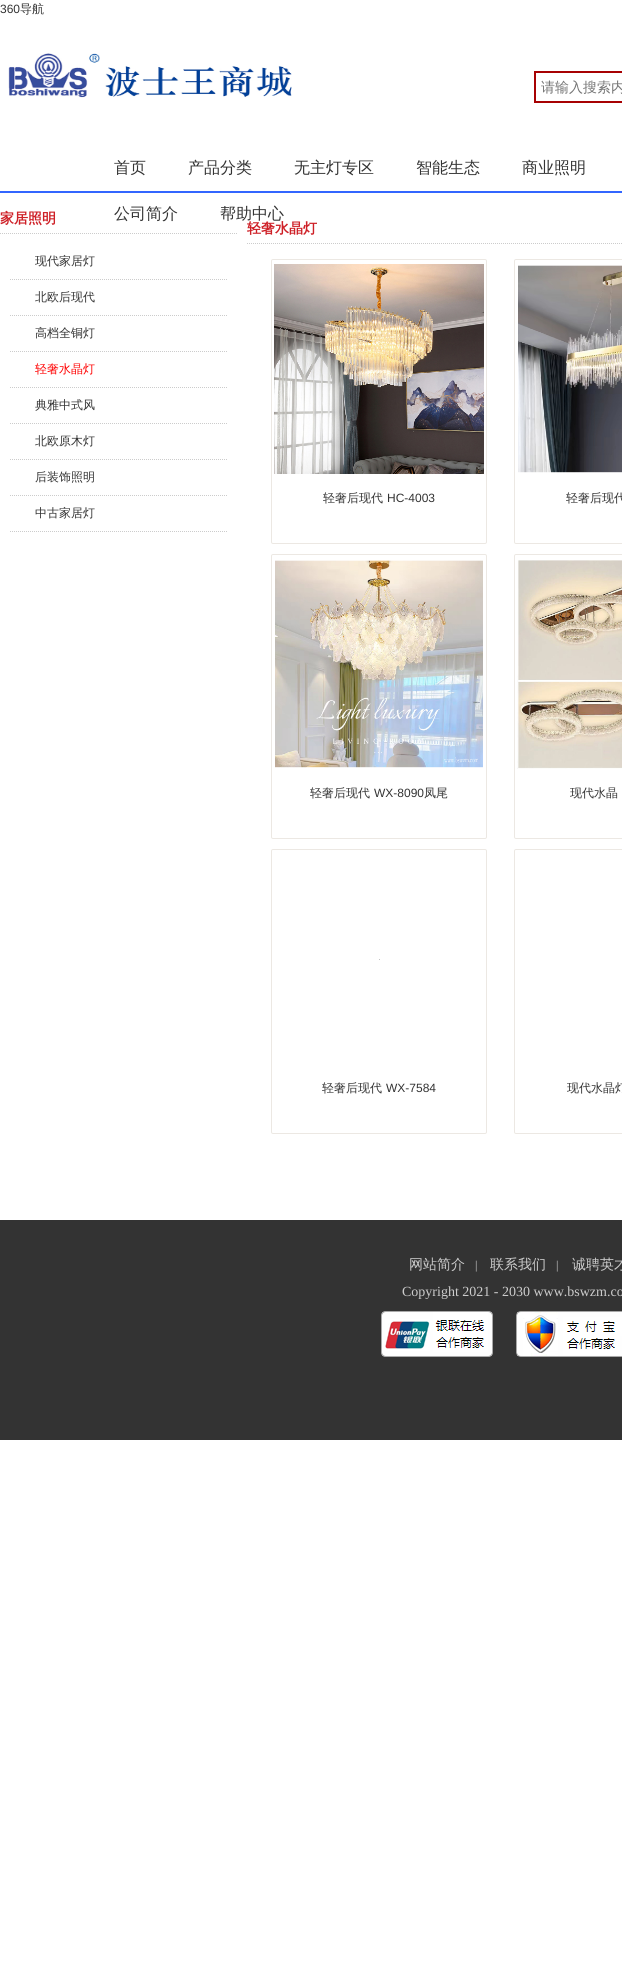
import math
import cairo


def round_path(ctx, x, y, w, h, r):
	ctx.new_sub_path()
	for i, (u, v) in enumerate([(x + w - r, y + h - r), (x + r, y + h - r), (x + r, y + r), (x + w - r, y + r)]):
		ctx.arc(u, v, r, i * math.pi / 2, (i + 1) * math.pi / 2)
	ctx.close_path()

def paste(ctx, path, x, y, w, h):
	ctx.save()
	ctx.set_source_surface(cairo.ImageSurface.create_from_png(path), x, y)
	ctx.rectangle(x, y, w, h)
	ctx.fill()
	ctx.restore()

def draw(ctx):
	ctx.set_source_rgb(1, 1, 1)
	ctx.paint()
	ctx.select_font_face('Liberation Sans')
	ctx.set_font_size(12)
	ctx.set_source_rgb(0.2, 0.2, 0.2)
	ctx.move_to(0, 13)
	ctx.show_text('360')
	ctx.select_font_face('WenQuanYi Zen Hei Medium')
	ctx.move_to(20, 13)
	ctx.show_text('导航')
	paste(ctx, 'media/1.png', 8, 53, 284, 45)
	ctx.rectangle(535, 72, 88, 30)
	ctx.set_source_rgb(0.655, 0.004, 0.012)
	ctx.stroke()
	ctx.set_font_size(14)
	ctx.set_source_rgb(0.459, 0.459, 0.459)
	ctx.move_to(541, 92)
	ctx.show_text('请输入搜索内')
	ctx.set_source_rgb(0.2, 0.4, 1)
	ctx.rectangle(0, 191, 622, 2)
	ctx.fill()
	ctx.set_font_size(16)
	ctx.set_source_rgb(0.2, 0.2, 0.2)
	for x, y, s in [
		(114, 173, '首页'),
		(188, 173, '产品分类'),
		(294, 173, '无主灯专区'),
		(416, 173, '智能生态'),
		(522, 173, '商业照明'),
		(114, 219, '公司简介'),
		(220, 219, '帮助中心'),
	]:
		ctx.move_to(x, y)
		ctx.show_text(s)
	ctx.new_path()
	ctx.move_to(0, 233.5)
	ctx.line_to(237, 233.5)
	ctx.set_source_rgb(0.8, 0.8, 0.8)
	ctx.set_line_width(1)
	ctx.set_dash([1, 1])
	ctx.stroke()
	ctx.select_font_face('WenQuanYi Zen Hei', cairo.FONT_SLANT_NORMAL, cairo.FONT_WEIGHT_BOLD)
	ctx.set_font_size(14)
	ctx.set_source_rgb(0.808, 0.125, 0.153)
	ctx.move_to(0, 223)
	ctx.show_text('家居照明')
	ctx.new_path()
	ctx.move_to(10, 279.5)
	ctx.line_to(227, 279.5)
	ctx.set_source_rgb(0.8, 0.8, 0.8)
	ctx.stroke()
	ctx.select_font_face('WenQuanYi Zen Hei Medium')
	ctx.set_font_size(12)
	ctx.set_source_rgb(0.2, 0.2, 0.2)
	ctx.move_to(35, 265)
	ctx.show_text('现代家居灯')
	ctx.new_path()
	ctx.move_to(10, 315.5)
	ctx.line_to(227, 315.5)
	ctx.set_source_rgb(0.8, 0.8, 0.8)
	ctx.stroke()
	ctx.set_source_rgb(0.2, 0.2, 0.2)
	ctx.move_to(35, 301)
	ctx.show_text('北欧后现代')
	ctx.new_path()
	ctx.move_to(10, 351.5)
	ctx.line_to(227, 351.5)
	ctx.set_source_rgb(0.8, 0.8, 0.8)
	ctx.stroke()
	ctx.set_source_rgb(0.2, 0.2, 0.2)
	ctx.move_to(35, 337)
	ctx.show_text('高档全铜灯')
	ctx.new_path()
	ctx.move_to(10, 387.5)
	ctx.line_to(227, 387.5)
	ctx.set_source_rgb(0.8, 0.8, 0.8)
	ctx.stroke()
	ctx.set_source_rgb(1, 0, 0)
	ctx.move_to(35, 373)
	ctx.show_text('轻奢水晶灯')
	ctx.new_path()
	ctx.move_to(10, 423.5)
	ctx.line_to(227, 423.5)
	ctx.set_source_rgb(0.8, 0.8, 0.8)
	ctx.stroke()
	ctx.set_source_rgb(0.2, 0.2, 0.2)
	ctx.move_to(35, 409)
	ctx.show_text('典雅中式风')
	ctx.new_path()
	ctx.move_to(10, 459.5)
	ctx.line_to(227, 459.5)
	ctx.set_source_rgb(0.8, 0.8, 0.8)
	ctx.stroke()
	ctx.set_source_rgb(0.2, 0.2, 0.2)
	ctx.move_to(35, 445)
	ctx.show_text('北欧原木灯')
	ctx.new_path()
	ctx.move_to(10, 495.5)
	ctx.line_to(227, 495.5)
	ctx.set_source_rgb(0.8, 0.8, 0.8)
	ctx.stroke()
	ctx.set_source_rgb(0.2, 0.2, 0.2)
	ctx.move_to(35, 481)
	ctx.show_text('后装饰照明')
	ctx.new_path()
	ctx.move_to(10, 531.5)
	ctx.line_to(227, 531.5)
	ctx.set_source_rgb(0.8, 0.8, 0.8)
	ctx.stroke()
	ctx.set_source_rgb(0.2, 0.2, 0.2)
	ctx.move_to(35, 517)
	ctx.show_text('中古家居灯')
	ctx.new_path()
	ctx.move_to(247, 243.5)
	ctx.line_to(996, 243.5)
	ctx.set_source_rgb(0.8, 0.8, 0.8)
	ctx.stroke()
	ctx.select_font_face('WenQuanYi Zen Hei', cairo.FONT_SLANT_NORMAL, cairo.FONT_WEIGHT_BOLD)
	ctx.set_font_size(14)
	ctx.set_source_rgb(0.808, 0.125, 0.153)
	ctx.move_to(247, 233)
	ctx.show_text('轻奢水晶灯')
	round_path(ctx, 271.5, 259.5, 215, 284, 1.5)
	ctx.set_source_rgb(0.922, 0.91, 0.89)
	ctx.set_dash([])
	ctx.stroke()
	paste(ctx, 'media/2.png', 274, 264, 210, 210)
	ctx.select_font_face('WenQuanYi Zen Hei Medium')
	ctx.set_font_size(12)
	ctx.set_source_rgb(0.2, 0.2, 0.2)
	ctx.move_to(323, 502)
	ctx.show_text('轻奢后现代')
	ctx.select_font_face('Liberation Sans')
	ctx.move_to(387, 502)
	ctx.show_text('HC-4003')
	round_path(ctx, 514.5, 259.5, 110, 284, 1.5)
	ctx.set_source_rgb(0.922, 0.91, 0.89)
	ctx.stroke()
	paste(ctx, 'media/3.png', 518, 265, 104, 208)
	ctx.select_font_face('WenQuanYi Zen Hei Medium')
	ctx.set_source_rgb(0.2, 0.2, 0.2)
	ctx.move_to(566, 502)
	ctx.show_text('轻奢后现代')
	round_path(ctx, 271.5, 554.5, 215, 284, 1.5)
	ctx.set_source_rgb(0.922, 0.91, 0.89)
	ctx.stroke()
	paste(ctx, 'media/4.png', 275, 560, 208, 208)
	ctx.set_source_rgb(0.2, 0.2, 0.2)
	ctx.move_to(310, 797)
	ctx.show_text('轻奢后现代')
	ctx.select_font_face('Liberation Sans')
	ctx.move_to(374, 797)
	ctx.show_text('WX-8090')
	ctx.select_font_face('WenQuanYi Zen Hei Medium')
	ctx.move_to(424, 797)
	ctx.show_text('凤尾')
	round_path(ctx, 514.5, 554.5, 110, 284, 1.5)
	ctx.set_source_rgb(0.922, 0.91, 0.89)
	ctx.stroke()
	paste(ctx, 'media/5.png', 517, 560, 105, 209)
	ctx.set_source_rgb(0.2, 0.2, 0.2)
	ctx.move_to(570, 797)
	ctx.show_text('现代水晶')
	round_path(ctx, 271.5, 849.5, 215, 284, 1.5)
	ctx.set_source_rgb(0.922, 0.91, 0.89)
	ctx.stroke()
	ctx.set_source_rgb(0.765, 0.765, 0.765)
	ctx.rectangle(379, 959, 1, 1)
	ctx.fill()
	ctx.set_source_rgb(0.2, 0.2, 0.2)
	ctx.move_to(322, 1092)
	ctx.show_text('轻奢后现代')
	ctx.select_font_face('Liberation Sans')
	ctx.move_to(386, 1092)
	ctx.show_text('WX-7584')
	round_path(ctx, 514.5, 849.5, 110, 284, 1.5)
	ctx.set_source_rgb(0.922, 0.91, 0.89)
	ctx.stroke()
	ctx.select_font_face('WenQuanYi Zen Hei Medium')
	ctx.set_source_rgb(0.2, 0.2, 0.2)
	ctx.move_to(567, 1092)
	ctx.show_text('现代水晶灯')
	ctx.rectangle(0, 1220, 622, 220)
	ctx.fill()
	ctx.set_font_size(14)
	ctx.set_source_rgb(0.8, 0.8, 0.8)
	ctx.move_to(409, 1269)
	ctx.show_text('网站简介')
	ctx.select_font_face('Liberation Serif')
	ctx.set_font_size(12)
	ctx.move_to(475, 1269)
	ctx.show_text('|')
	ctx.select_font_face('WenQuanYi Zen Hei Medium')
	ctx.set_font_size(14)
	ctx.move_to(490, 1269)
	ctx.show_text('联系我们')
	ctx.select_font_face('Liberation Serif')
	ctx.set_font_size(12)
	ctx.move_to(556, 1269)
	ctx.show_text('|')
	ctx.select_font_face('WenQuanYi Zen Hei Medium')
	ctx.set_font_size(14)
	ctx.move_to(572, 1269)
	ctx.show_text('诚聘英才')
	ctx.select_font_face('Liberation Serif')
	ctx.move_to(402, 1296)
	ctx.show_text('Copyright 2021 - 2030 www.bswzm.co')
	paste(ctx, 'media/6.png', 381, 1311, 112, 46)
	paste(ctx, 'media/7.png', 516, 1311, 106, 46)


surface = cairo.ImageSurface(cairo.FORMAT_RGB24, 622, 1982)
ctx = cairo.Context(surface)
options = cairo.FontOptions()
options.set_hint_metrics(cairo.HINT_METRICS_OFF)
options.set_hint_style(cairo.HINT_STYLE_NONE)
ctx.set_font_options(options)
ctx.set_miter_limit(4)
draw(ctx)
surface.write_to_png('image.png')
